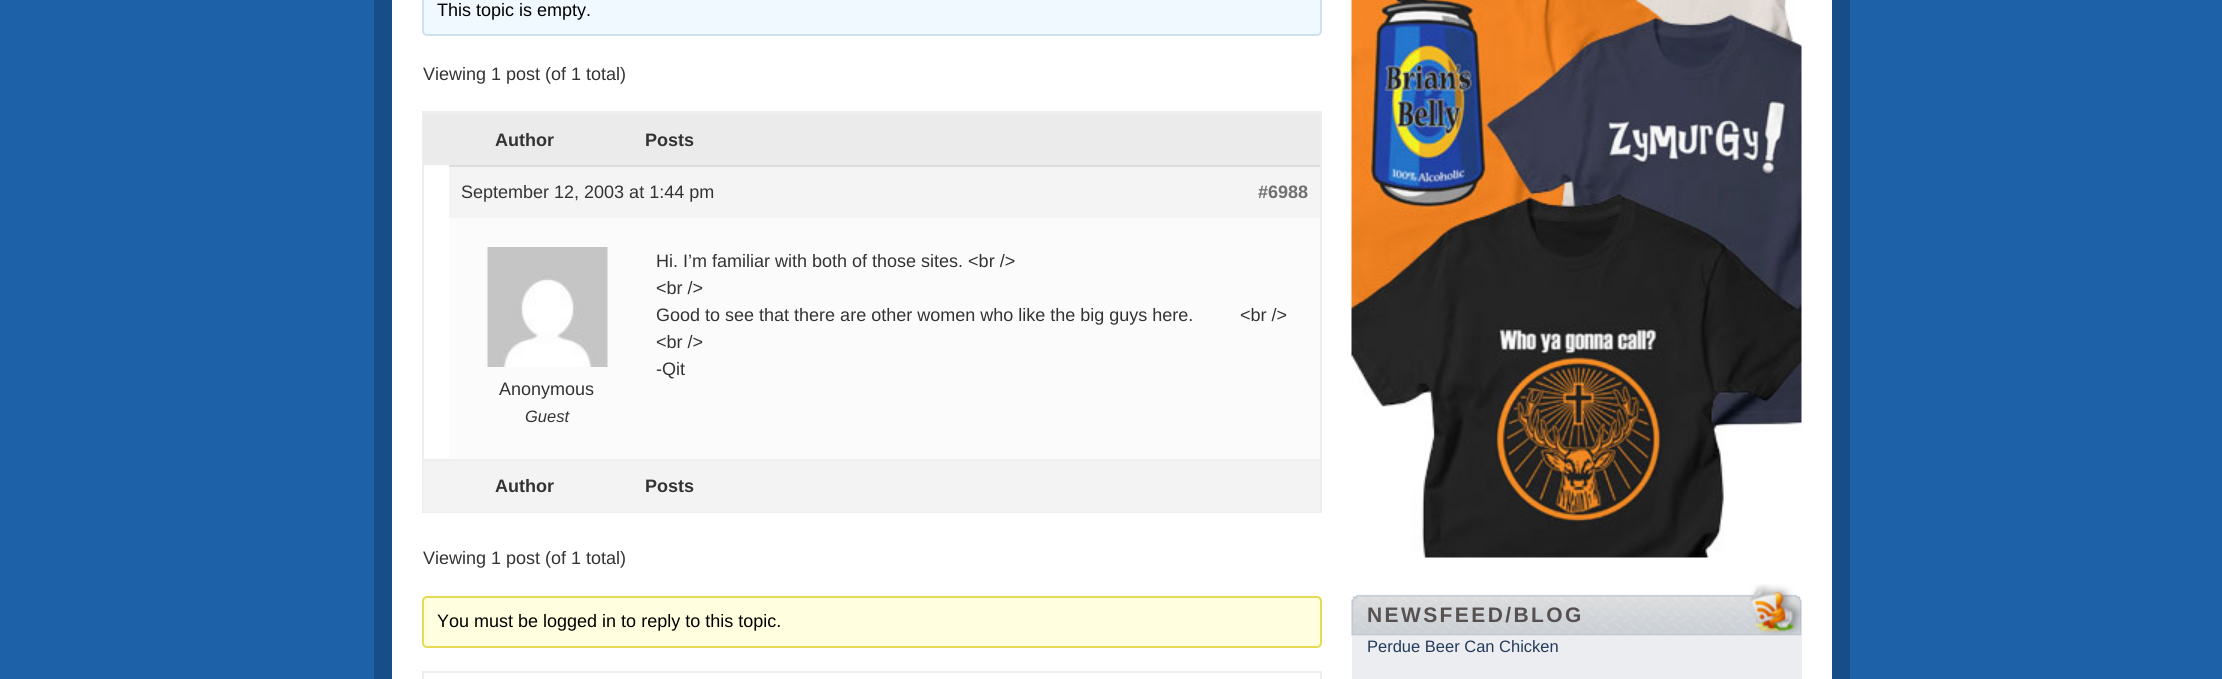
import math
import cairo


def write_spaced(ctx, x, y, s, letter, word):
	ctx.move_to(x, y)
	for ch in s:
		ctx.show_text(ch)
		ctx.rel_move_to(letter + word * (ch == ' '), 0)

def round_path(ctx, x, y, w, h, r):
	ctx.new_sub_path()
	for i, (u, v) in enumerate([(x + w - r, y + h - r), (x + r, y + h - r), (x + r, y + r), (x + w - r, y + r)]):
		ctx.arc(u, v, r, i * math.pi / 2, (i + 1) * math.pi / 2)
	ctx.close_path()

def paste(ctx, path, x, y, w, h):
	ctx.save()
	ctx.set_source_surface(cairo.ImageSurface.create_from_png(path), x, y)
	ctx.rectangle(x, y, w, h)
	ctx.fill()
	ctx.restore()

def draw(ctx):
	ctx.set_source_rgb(0.114, 0.38, 0.663)
	ctx.paint()
	ctx.set_source_rgb(0.09, 0.306, 0.529)
	ctx.rectangle(374, 0, 1476, 679)
	ctx.fill()
	ctx.set_source_rgb(1, 1, 1)
	ctx.rectangle(392, 0, 1440, 679)
	ctx.fill()
	ctx.set_source_rgb(0.941, 0.973, 1)
	round_path(ctx, 423, -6, 898, 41, 4)
	ctx.fill_preserve()
	ctx.set_source_rgb(0.808, 0.882, 0.937)
	ctx.stroke()
	ctx.select_font_face('Liberation Sans')
	ctx.set_font_size(18)
	ctx.set_source_rgb(0, 0, 0)
	ctx.move_to(437, 16)
	ctx.show_text('This topic is empty.')
	ctx.set_source_rgb(0.2, 0.2, 0.2)
	ctx.move_to(423, 80)
	ctx.show_text('Viewing 1 post (of 1 total)')
	ctx.rectangle(423, 112, 898, 400)
	ctx.set_source_rgb(0.933, 0.933, 0.933)
	ctx.stroke()
	ctx.set_source_rgb(0.918, 0.918, 0.918)
	ctx.rectangle(423, 115, 897, 50)
	ctx.fill()
	ctx.set_source_rgb(0.933, 0.933, 0.933)
	ctx.rectangle(423, 113, 897, 2)
	ctx.fill()
	ctx.select_font_face('Liberation Sans', cairo.FONT_SLANT_NORMAL, cairo.FONT_WEIGHT_BOLD)
	ctx.set_source_rgb(0.2, 0.2, 0.2)
	ctx.move_to(495, 146)
	ctx.show_text('Author')
	ctx.move_to(645, 146)
	ctx.show_text('Posts')
	ctx.set_source_rgb(0.957, 0.957, 0.957)
	ctx.rectangle(449, 167, 871, 51)
	ctx.fill()
	ctx.set_source_rgb(0.867, 0.867, 0.867)
	ctx.rectangle(449, 165, 871, 2)
	ctx.fill()
	ctx.select_font_face('Liberation Sans')
	ctx.set_source_rgb(0.2, 0.2, 0.2)
	ctx.move_to(461, 198)
	ctx.show_text('September 12, 2003 at 1:44 pm')
	ctx.select_font_face('Liberation Sans', cairo.FONT_SLANT_NORMAL, cairo.FONT_WEIGHT_BOLD)
	ctx.set_source_rgb(0.439, 0.439, 0.439)
	ctx.move_to(1258, 198)
	ctx.show_text('#6988')
	ctx.set_source_rgb(0.984, 0.984, 0.984)
	ctx.rectangle(449, 218, 871, 241)
	ctx.fill()
	ctx.select_font_face('Liberation Sans')
	ctx.set_source_rgb(0.2, 0.2, 0.2)
	for x, y, s in [
		(656, 267, 'Hi. I’m familiar with both of those sites. <br />'),
		(656, 294, '<br />'),
		(656, 321, 'Good to see that there are other women who like the big guys here.'),
		(1240, 321, '<br />'),
		(656, 348, '<br />'),
		(656, 375, '-Qit'),
	]:
		ctx.move_to(x, y)
		ctx.show_text(s)
	paste(ctx, 'media/1.png', 487, 247, 121, 120)
	ctx.move_to(499, 395)
	ctx.show_text('Anonymous')
	ctx.select_font_face('Liberation Sans', cairo.FONT_SLANT_ITALIC)
	ctx.set_font_size(16.5)
	ctx.move_to(525, 422)
	ctx.show_text('Guest')
	ctx.set_source_rgb(0.953, 0.953, 0.953)
	ctx.rectangle(423, 461, 897, 51)
	ctx.fill()
	ctx.set_source_rgb(0.933, 0.933, 0.933)
	ctx.rectangle(423, 459, 897, 2)
	ctx.fill()
	ctx.select_font_face('Liberation Sans', cairo.FONT_SLANT_NORMAL, cairo.FONT_WEIGHT_BOLD)
	ctx.set_font_size(18)
	ctx.set_source_rgb(0.2, 0.2, 0.2)
	ctx.move_to(495, 492)
	ctx.show_text('Author')
	ctx.move_to(645, 492)
	ctx.show_text('Posts')
	ctx.select_font_face('Liberation Sans')
	ctx.move_to(423, 564)
	ctx.show_text('Viewing 1 post (of 1 total)')
	ctx.set_source_rgb(1, 1, 0.878)
	round_path(ctx, 423, 597, 898, 50, 4)
	ctx.fill_preserve()
	ctx.set_source_rgb(0.902, 0.859, 0.333)
	ctx.stroke()
	ctx.set_source_rgb(0, 0, 0)
	ctx.move_to(437, 627)
	ctx.show_text('You must be logged in to reply to this topic.')
	ctx.rectangle(423, 672, 898, 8)
	ctx.set_source_rgb(0.933, 0.933, 0.933)
	ctx.stroke()
	paste(ctx, 'media/2.png', 1351, 0, 451, 558)
	paste(ctx, 'media/3.png', 1351, 584, 451, 52)
	ctx.select_font_face('Liberation Sans', cairo.FONT_SLANT_NORMAL, cairo.FONT_WEIGHT_BOLD)
	ctx.set_font_size(21)
	ctx.set_source_rgb(0.337, 0.314, 0.314)
	write_spaced(ctx, 1367, 622, 'NEWSFEED/BLOG', 2.4, 0)
	ctx.set_source_rgb(0.918, 0.929, 0.941)
	ctx.rectangle(1352, 636, 450, 43)
	ctx.fill()
	ctx.select_font_face('Liberation Sans')
	ctx.set_font_size(16.5)
	ctx.set_source_rgb(0.137, 0.227, 0.349)
	ctx.move_to(1367, 652)
	ctx.show_text('Perdue Beer Can Chicken')


surface = cairo.ImageSurface(cairo.FORMAT_RGB24, 2222, 679)
ctx = cairo.Context(surface)
options = cairo.FontOptions()
options.set_hint_metrics(cairo.HINT_METRICS_OFF)
options.set_hint_style(cairo.HINT_STYLE_NONE)
ctx.set_font_options(options)
ctx.set_miter_limit(4)
draw(ctx)
surface.write_to_png('image.png')
